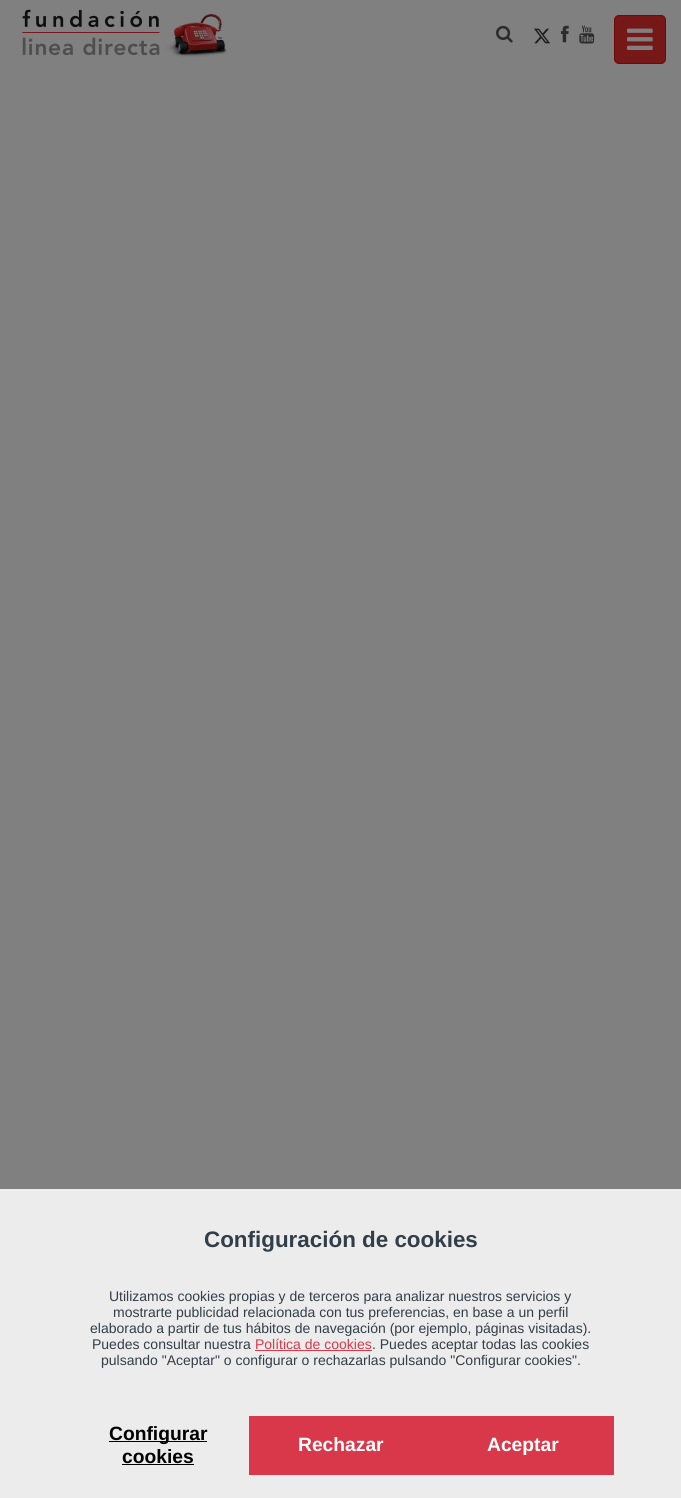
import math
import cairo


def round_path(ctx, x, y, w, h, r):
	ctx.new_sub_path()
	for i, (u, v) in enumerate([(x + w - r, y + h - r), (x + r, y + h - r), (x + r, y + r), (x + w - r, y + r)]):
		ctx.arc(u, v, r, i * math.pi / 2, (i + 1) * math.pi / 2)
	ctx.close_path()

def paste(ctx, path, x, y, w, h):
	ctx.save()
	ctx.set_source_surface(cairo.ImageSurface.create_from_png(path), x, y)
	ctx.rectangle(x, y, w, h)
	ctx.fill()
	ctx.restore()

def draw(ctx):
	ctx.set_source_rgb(0.502, 0.502, 0.502)
	ctx.paint()
	paste(ctx, 'media/1.png', 22, 9, 205, 48)
	paste(ctx, 'media/2.png', 496, 25, 17, 18)
	paste(ctx, 'media/3.png', 534, 28, 16, 16)
	paste(ctx, 'media/4.png', 561, 25, 8, 18)
	paste(ctx, 'media/5.png', 579, 25, 16, 19)
	ctx.set_source_rgb(0.467, 0.094, 0.094)
	round_path(ctx, 614.5, 15.5, 51, 48, 4.5)
	ctx.fill_preserve()
	ctx.set_source_rgb(0.451, 0.024, 0.024)
	ctx.set_line_width(1)
	ctx.stroke()
	paste(ctx, 'media/6.png', 627, 28, 26, 22)
	ctx.set_source_rgb(0.925, 0.925, 0.925)
	ctx.rectangle(0, 1189, 681, 309)
	ctx.fill()
	ctx.select_font_face('Liberation Sans', cairo.FONT_SLANT_NORMAL, cairo.FONT_WEIGHT_BOLD)
	ctx.set_font_size(22.4)
	ctx.set_source_rgb(0.196, 0.243, 0.282)
	ctx.move_to(204, 1247)
	ctx.show_text('Configuración de cookies')
	ctx.select_font_face('Liberation Sans')
	ctx.set_font_size(14)
	for x, y, s in [
		(109, 1301, 'Utilizamos cookies propias y de terceros para analizar nuestros servicios y'),
		(113, 1317, 'mostrarte publicidad relacionada con tus preferencias, en base a un perfil'),
		(90, 1333, 'elaborado a partir de tus hábitos de navegación (por ejemplo, páginas visitadas).'),
		(92, 1349, 'Puedes consultar nuestra'),
	]:
		ctx.move_to(x, y)
		ctx.show_text(s)
	ctx.set_source_rgb(0.851, 0.22, 0.29)
	ctx.move_to(255, 1349)
	ctx.show_text('Política de cookies')
	ctx.rectangle(255, 1350, 117, 1)
	ctx.fill()
	ctx.set_source_rgb(0.196, 0.243, 0.282)
	ctx.move_to(372, 1349)
	ctx.show_text('. Puedes aceptar todas las cookies')
	ctx.move_to(101, 1365)
	ctx.show_text('pulsando "Aceptar" o configurar o rechazarlas pulsando "Configurar cookies".')
	ctx.set_source_rgb(0, 0, 0)
	ctx.rectangle(109, 1441, 98, 1)
	ctx.fill()
	ctx.select_font_face('Liberation Sans', cairo.FONT_SLANT_NORMAL, cairo.FONT_WEIGHT_BOLD)
	ctx.set_font_size(19.25)
	ctx.move_to(109, 1440)
	ctx.show_text('Configurar')
	ctx.move_to(122, 1463)
	ctx.show_text('cookies')
	ctx.rectangle(122, 1464, 72, 1)
	ctx.fill()
	ctx.set_source_rgb(0.851, 0.22, 0.29)
	ctx.rectangle(249, 1416, 365, 59)
	ctx.fill()
	ctx.set_source_rgb(1, 1, 1)
	ctx.move_to(298, 1451)
	ctx.show_text('Rechazar')
	ctx.move_to(487, 1451)
	ctx.show_text('Aceptar')


surface = cairo.ImageSurface(cairo.FORMAT_RGB24, 681, 1498)
ctx = cairo.Context(surface)
options = cairo.FontOptions()
options.set_hint_metrics(cairo.HINT_METRICS_OFF)
options.set_hint_style(cairo.HINT_STYLE_NONE)
ctx.set_font_options(options)
ctx.set_miter_limit(4)
draw(ctx)
surface.write_to_png('image.png')
